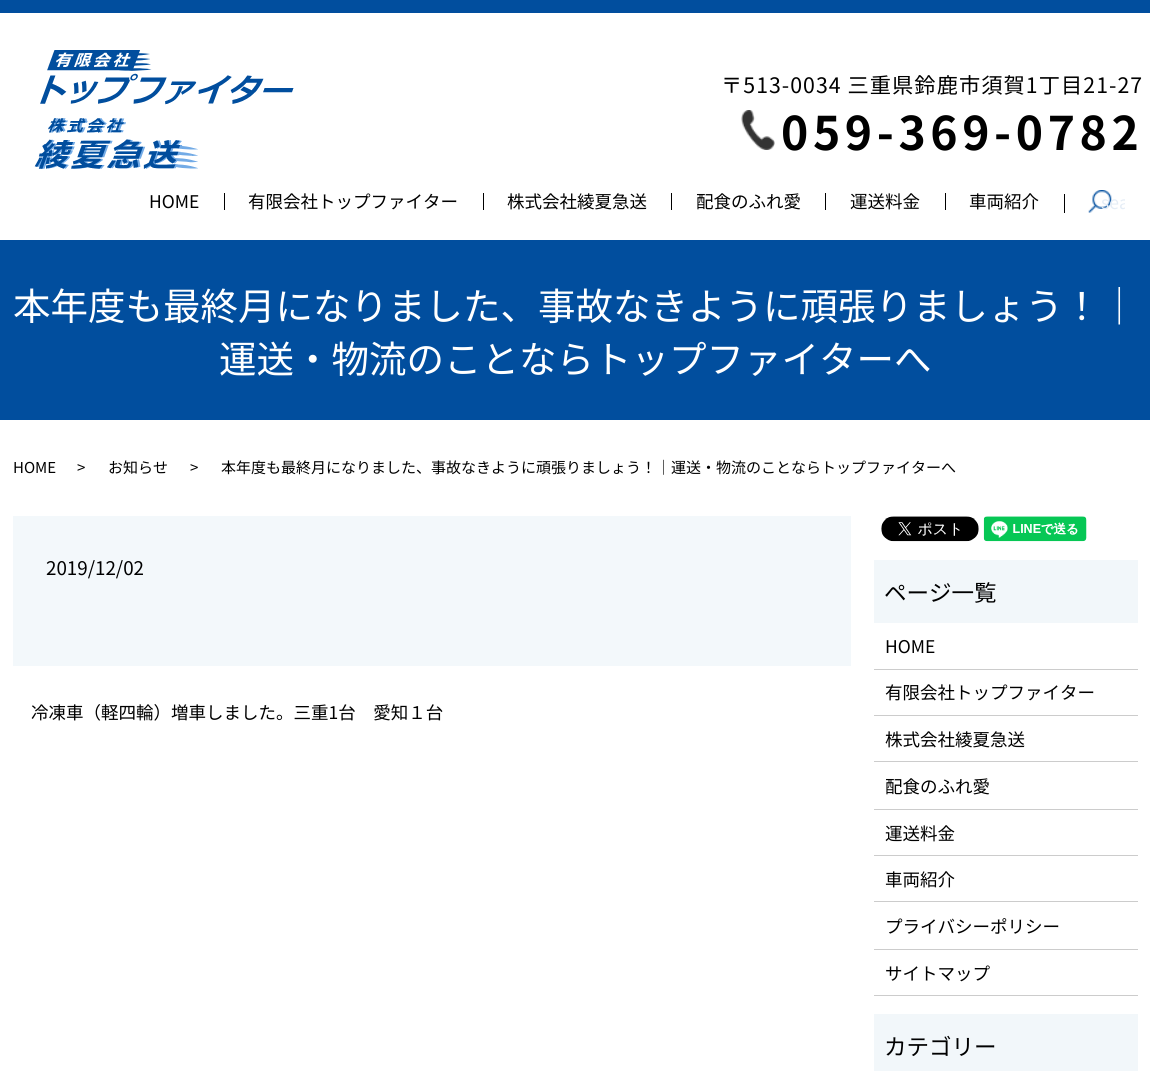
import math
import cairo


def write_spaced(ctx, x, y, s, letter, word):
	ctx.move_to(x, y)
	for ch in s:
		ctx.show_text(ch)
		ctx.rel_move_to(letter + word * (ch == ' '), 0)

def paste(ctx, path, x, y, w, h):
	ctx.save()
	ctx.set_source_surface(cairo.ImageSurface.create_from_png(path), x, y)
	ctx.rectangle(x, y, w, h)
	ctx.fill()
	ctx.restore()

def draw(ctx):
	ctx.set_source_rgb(1, 1, 1)
	ctx.paint()
	ctx.set_source_rgb(0.004, 0.306, 0.62)
	ctx.rectangle(0, 0, 1150, 13)
	ctx.fill()
	paste(ctx, 'media/1.png', 40, 50, 254, 55)
	paste(ctx, 'media/2.png', 34, 118, 164, 51)
	ctx.select_font_face('Noto Sans JP')
	ctx.set_font_size(21.25)
	ctx.set_source_rgb(0, 0, 0)
	write_spaced(ctx, 721, 93, '〒513-0034 三重県鈴鹿市須賀1丁目21-27', 1.05, 0)
	paste(ctx, 'media/3.png', 741, 110, 34, 40)
	ctx.select_font_face('Noto Sans JP', cairo.FONT_SLANT_NORMAL, cairo.FONT_WEIGHT_BOLD)
	ctx.set_font_size(46.25)
	write_spaced(ctx, 781, 150, '059-369-0782', 4.6, 0)
	ctx.select_font_face('Noto Sans JP')
	ctx.set_font_size(17.5)
	ctx.move_to(149, 208)
	ctx.show_text('HOME')
	ctx.rectangle(224, 193, 1, 17)
	ctx.fill()
	ctx.move_to(248, 208)
	ctx.show_text('有限会社トップファイター')
	ctx.rectangle(483, 193, 1, 17)
	ctx.fill()
	ctx.move_to(507, 208)
	ctx.show_text('株式会社綾夏急送')
	ctx.rectangle(671, 193, 1, 17)
	ctx.fill()
	ctx.move_to(696, 208)
	ctx.show_text('配食のふれ愛')
	ctx.rectangle(825, 193, 1, 17)
	ctx.fill()
	ctx.move_to(850, 208)
	ctx.show_text('運送料金')
	ctx.rectangle(945, 193, 1, 17)
	ctx.fill()
	ctx.move_to(969, 208)
	ctx.show_text('車両紹介')
	paste(ctx, 'media/4.png', 1088, 190, 24, 23)
	ctx.rectangle(1064, 194, 1, 19)
	ctx.fill()
	ctx.save()
	ctx.rectangle(1076, 184, 49, 35)
	ctx.clip()
	ctx.set_source_rgb(0.898, 0.929, 0.961)
	ctx.move_to(1101, 209)
	ctx.show_text('sea')
	ctx.restore()
	ctx.set_source_rgb(0.004, 0.306, 0.62)
	ctx.rectangle(0, 240, 1150, 180)
	ctx.fill()
	ctx.set_font_size(37.5)
	ctx.set_source_rgb(1, 1, 1)
	ctx.move_to(13, 320)
	ctx.show_text('本年度も最終月になりました、事故なきように頑張りましょう！｜')
	ctx.move_to(219, 373)
	ctx.show_text('運送・物流のことならトップファイターへ')
	ctx.set_font_size(15)
	ctx.set_source_rgb(0, 0, 0)
	for x, y, s in [
		(13, 473, 'HOME'),
		(77, 473, '>'),
		(108, 473, 'お知らせ'),
		(190, 473, '>'),
		(221, 473, '本年度も最終月になりました、事故なきように頑張りましょう！｜運送・物流のことならトップファイターへ'),
	]:
		ctx.move_to(x, y)
		ctx.show_text(s)
	ctx.set_source_rgb(0.953, 0.969, 0.984)
	ctx.rectangle(13, 516, 838, 150)
	ctx.fill()
	ctx.set_font_size(18.75)
	ctx.set_source_rgb(0, 0, 0)
	ctx.move_to(46, 575)
	ctx.show_text('2019/12/02')
	ctx.set_font_size(17.5)
	ctx.move_to(31, 719)
	ctx.show_text('冷凍車（軽四輪）増車しました。三重1台　愛知１台')
	paste(ctx, 'media/5.png', 881, 516, 98, 26)
	paste(ctx, 'media/6.png', 983, 516, 104, 26)
	ctx.set_source_rgb(0.949, 0.965, 0.98)
	ctx.rectangle(874, 560, 264, 63)
	ctx.fill()
	ctx.set_font_size(22.5)
	ctx.set_source_rgb(0, 0, 0)
	ctx.move_to(884, 601)
	ctx.show_text('ページ一覧')
	ctx.set_source_rgb(0.8, 0.8, 0.8)
	ctx.rectangle(874, 669, 264, 1)
	ctx.fill()
	ctx.set_font_size(17.5)
	ctx.set_source_rgb(0, 0, 0)
	ctx.move_to(885, 653)
	ctx.show_text('HOME')
	ctx.set_source_rgb(0.8, 0.8, 0.8)
	ctx.rectangle(874, 715, 264, 1)
	ctx.fill()
	ctx.set_source_rgb(0, 0, 0)
	ctx.move_to(885, 699)
	ctx.show_text('有限会社トップファイター')
	ctx.set_source_rgb(0.8, 0.8, 0.8)
	ctx.rectangle(874, 761, 264, 1)
	ctx.fill()
	ctx.set_source_rgb(0, 0, 0)
	ctx.move_to(885, 746)
	ctx.show_text('株式会社綾夏急送')
	ctx.set_source_rgb(0.8, 0.8, 0.8)
	ctx.rectangle(874, 809, 264, 1)
	ctx.fill()
	ctx.set_source_rgb(0, 0, 0)
	ctx.move_to(885, 793)
	ctx.show_text('配食のふれ愛')
	ctx.set_source_rgb(0.8, 0.8, 0.8)
	ctx.rectangle(874, 855, 264, 1)
	ctx.fill()
	ctx.set_source_rgb(0, 0, 0)
	ctx.move_to(885, 840)
	ctx.show_text('運送料金')
	ctx.set_source_rgb(0.8, 0.8, 0.8)
	ctx.rectangle(874, 901, 264, 1)
	ctx.fill()
	ctx.set_source_rgb(0, 0, 0)
	ctx.move_to(885, 886)
	ctx.show_text('車両紹介')
	ctx.set_source_rgb(0.8, 0.8, 0.8)
	ctx.rectangle(874, 949, 264, 1)
	ctx.fill()
	ctx.set_source_rgb(0, 0, 0)
	ctx.move_to(885, 933)
	ctx.show_text('プライバシーポリシー')
	ctx.set_source_rgb(0.8, 0.8, 0.8)
	ctx.rectangle(874, 995, 264, 1)
	ctx.fill()
	ctx.set_source_rgb(0, 0, 0)
	ctx.move_to(885, 980)
	ctx.show_text('サイトマップ')
	ctx.set_source_rgb(0.949, 0.965, 0.98)
	ctx.rectangle(874, 1014, 264, 57)
	ctx.fill()
	ctx.set_font_size(22.5)
	ctx.set_source_rgb(0, 0, 0)
	ctx.move_to(884, 1055)
	ctx.show_text('カテゴリー')


surface = cairo.ImageSurface(cairo.FORMAT_RGB24, 1150, 1071)
ctx = cairo.Context(surface)
options = cairo.FontOptions()
options.set_hint_metrics(cairo.HINT_METRICS_OFF)
options.set_hint_style(cairo.HINT_STYLE_NONE)
ctx.set_font_options(options)
ctx.set_miter_limit(4)
draw(ctx)
surface.write_to_png('image.png')
